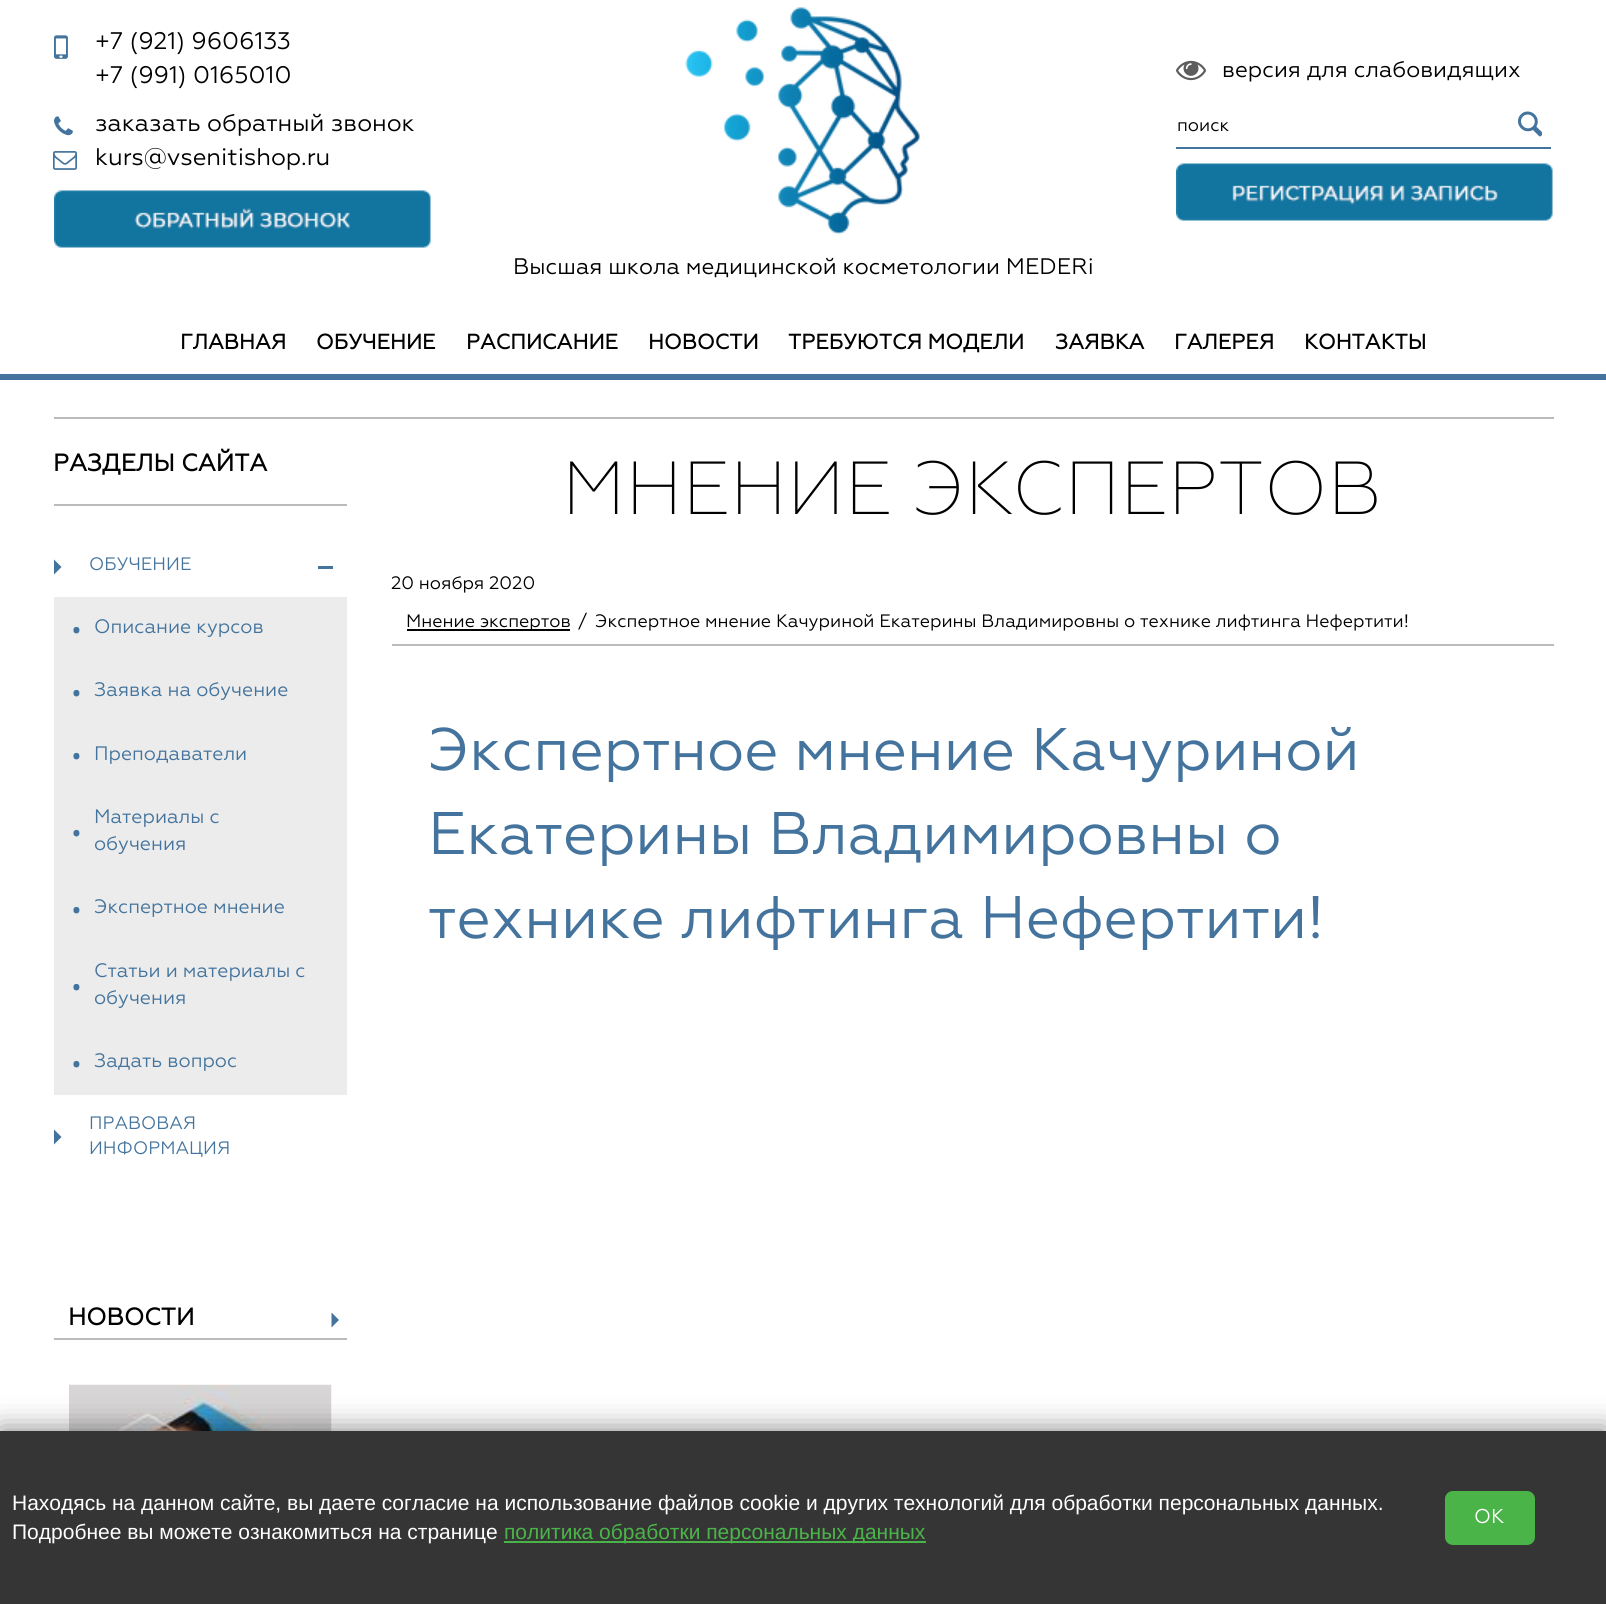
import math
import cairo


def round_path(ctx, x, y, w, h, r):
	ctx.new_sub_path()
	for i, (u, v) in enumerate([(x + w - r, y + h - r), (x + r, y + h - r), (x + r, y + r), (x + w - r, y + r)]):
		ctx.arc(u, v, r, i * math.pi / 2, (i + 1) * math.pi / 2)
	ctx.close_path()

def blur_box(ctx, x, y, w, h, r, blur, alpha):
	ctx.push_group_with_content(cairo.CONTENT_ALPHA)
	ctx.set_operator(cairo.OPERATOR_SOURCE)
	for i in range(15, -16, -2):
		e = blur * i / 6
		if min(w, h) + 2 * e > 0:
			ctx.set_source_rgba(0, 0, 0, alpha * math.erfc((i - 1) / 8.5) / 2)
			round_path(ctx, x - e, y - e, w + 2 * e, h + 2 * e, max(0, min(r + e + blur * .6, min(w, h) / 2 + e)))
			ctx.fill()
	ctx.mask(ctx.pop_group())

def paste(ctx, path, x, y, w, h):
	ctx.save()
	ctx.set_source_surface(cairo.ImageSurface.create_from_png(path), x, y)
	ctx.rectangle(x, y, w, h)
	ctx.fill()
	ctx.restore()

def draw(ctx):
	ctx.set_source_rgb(1, 1, 1)
	ctx.paint()
	ctx.set_source_rgb(0.267, 0.455, 0.616)
	ctx.rectangle(0, 374, 1606, 6)
	ctx.fill()
	paste(ctx, 'media/1.png', 54, 35, 14, 24)
	ctx.select_font_face('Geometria')
	ctx.set_font_size(24)
	ctx.set_source_rgb(0, 0, 0)
	ctx.move_to(95, 49)
	ctx.show_text('+7 (921) 9606133')
	ctx.move_to(95, 83)
	ctx.show_text('+7 (991) 0165010')
	paste(ctx, 'media/2.png', 54, 116, 19, 20)
	ctx.move_to(95, 131)
	ctx.show_text('заказать обратный звонок')
	ctx.select_font_face('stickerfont')
	ctx.set_source_rgb(0.267, 0.455, 0.616)
	ctx.move_to(53, 168)
	ctx.show_text('@')
	ctx.select_font_face('Geometria')
	ctx.set_source_rgb(0, 0, 0)
	ctx.move_to(95, 165)
	ctx.show_text('kurs@vsenitishop.ru')
	paste(ctx, 'media/3.png', 54, 190, 377, 58)
	paste(ctx, 'media/4.png', 1176, 60, 30, 21)
	ctx.set_font_size(22.5)
	ctx.move_to(1222, 77)
	ctx.show_text('версия для слабовидящих')
	ctx.set_source_rgb(0.267, 0.455, 0.616)
	ctx.rectangle(1176, 147, 375, 2)
	ctx.fill()
	ctx.set_font_size(18)
	ctx.set_source_rgb(0, 0, 0)
	ctx.move_to(1177, 131)
	ctx.show_text('поиск')
	paste(ctx, 'media/5.png', 1518, 111, 24, 26)
	paste(ctx, 'media/6.png', 1176, 163, 377, 58)
	paste(ctx, 'media/7.png', 685, 7, 235, 228)
	ctx.set_font_size(22.5)
	ctx.move_to(513, 274)
	ctx.show_text('Высшая школа медицинской косметологии MEDERi')
	ctx.select_font_face('Geometria', cairo.FONT_SLANT_NORMAL, cairo.FONT_WEIGHT_BOLD)
	ctx.set_font_size(21)
	for x, y, s in [
		(180, 349, 'ГЛАВНАЯ'),
		(316, 349, 'ОБУЧЕНИЕ'),
		(466, 349, 'РАСПИСАНИЕ'),
		(648, 349, 'НОВОСТИ'),
		(788, 349, 'ТРЕБУЮТСЯ МОДЕЛИ'),
		(1055, 349, 'ЗАЯВКА'),
		(1174, 349, 'ГАЛЕРЕЯ'),
		(1304, 349, 'КОНТАКТЫ'),
	]:
		ctx.move_to(x, y)
		ctx.show_text(s)
	ctx.set_source_rgb(0.733, 0.733, 0.733)
	ctx.rectangle(54, 417, 1500, 2)
	ctx.fill()
	ctx.rectangle(54, 504, 293, 2)
	ctx.fill()
	ctx.set_font_size(24)
	ctx.set_source_rgb(0, 0, 0)
	ctx.move_to(53, 471)
	ctx.show_text('РАЗДЕЛЫ САЙТА')
	ctx.set_source_rgb(0.267, 0.455, 0.616)
	ctx.new_path()
	ctx.move_to(54, 574.5)
	ctx.line_to(54, 559.5)
	ctx.line_to(61.5, 567)
	ctx.close_path()
	ctx.fill()
	ctx.select_font_face('Geometria')
	ctx.set_font_size(18)
	ctx.move_to(89, 570)
	ctx.show_text('ОБУЧЕНИЕ')
	ctx.rectangle(318, 566, 15, 3)
	ctx.fill()
	ctx.set_source_rgb(0.925, 0.925, 0.925)
	ctx.rectangle(54, 597, 293, 498)
	ctx.fill()
	ctx.select_font_face('Noto Sans')
	ctx.set_font_size(48)
	ctx.set_source_rgb(0.267, 0.455, 0.616)
	ctx.move_to(70, 642)
	ctx.show_text('‧')
	ctx.select_font_face('Geometria')
	ctx.set_font_size(19.5)
	ctx.move_to(94, 633)
	ctx.show_text('Описание курсов')
	ctx.select_font_face('Noto Sans')
	ctx.set_font_size(48)
	ctx.move_to(70, 705)
	ctx.show_text('‧')
	ctx.select_font_face('Geometria')
	ctx.set_font_size(19.5)
	ctx.move_to(94, 696)
	ctx.show_text('Заявка на обучение')
	ctx.select_font_face('Noto Sans')
	ctx.set_font_size(48)
	ctx.move_to(70, 768)
	ctx.show_text('‧')
	ctx.select_font_face('Geometria')
	ctx.set_font_size(19.5)
	ctx.move_to(94, 760)
	ctx.show_text('Преподаватели')
	ctx.move_to(94, 823)
	ctx.show_text('Материалы с')
	ctx.select_font_face('Noto Sans')
	ctx.set_font_size(48)
	ctx.move_to(70, 845)
	ctx.show_text('‧')
	ctx.select_font_face('Geometria')
	ctx.set_font_size(19.5)
	ctx.move_to(94, 850)
	ctx.show_text('обучения')
	ctx.select_font_face('Noto Sans')
	ctx.set_font_size(48)
	ctx.move_to(70, 922)
	ctx.show_text('‧')
	ctx.select_font_face('Geometria')
	ctx.set_font_size(19.5)
	ctx.move_to(94, 913)
	ctx.show_text('Экспертное мнение')
	ctx.move_to(94, 977)
	ctx.show_text('Статьи и материалы с')
	ctx.select_font_face('Noto Sans')
	ctx.set_font_size(48)
	ctx.move_to(70, 999)
	ctx.show_text('‧')
	ctx.select_font_face('Geometria')
	ctx.set_font_size(19.5)
	ctx.move_to(94, 1004)
	ctx.show_text('обучения')
	ctx.select_font_face('Noto Sans')
	ctx.set_font_size(48)
	ctx.move_to(70, 1076)
	ctx.show_text('‧')
	ctx.select_font_face('Geometria')
	ctx.set_font_size(19.5)
	ctx.move_to(94, 1067)
	ctx.show_text('Задать вопрос')
	ctx.set_font_size(18)
	ctx.move_to(89, 1129)
	ctx.show_text('ПРАВОВАЯ')
	ctx.new_path()
	ctx.move_to(54, 1144.5)
	ctx.line_to(54, 1129.5)
	ctx.line_to(61.5, 1137)
	ctx.close_path()
	ctx.fill()
	ctx.move_to(89, 1154)
	ctx.show_text('ИНФОРМАЦИЯ')
	ctx.set_source_rgb(0.733, 0.733, 0.733)
	ctx.rectangle(54, 1338, 293, 2)
	ctx.fill()
	ctx.select_font_face('Geometria', cairo.FONT_SLANT_NORMAL, cairo.FONT_WEIGHT_BOLD)
	ctx.set_font_size(24)
	ctx.set_source_rgb(0, 0, 0)
	ctx.move_to(68, 1325)
	ctx.show_text('НОВОСТИ')
	ctx.set_source_rgb(0.267, 0.455, 0.616)
	ctx.new_path()
	ctx.move_to(331.5, 1327.5)
	ctx.line_to(331.5, 1312.5)
	ctx.line_to(339, 1320)
	ctx.close_path()
	ctx.fill()
	paste(ctx, 'media/8.png', 69, 1384, 263, 47)
	ctx.set_source_rgb(0.733, 0.733, 0.733)
	ctx.rectangle(392, 644, 1162, 2)
	ctx.fill()
	ctx.select_font_face('Geometria ExtraLight')
	ctx.set_font_size(75)
	ctx.set_source_rgb(0, 0, 0)
	ctx.move_to(562, 514)
	ctx.show_text('МНЕНИЕ ЭКСПЕРТОВ')
	ctx.select_font_face('Geometria')
	ctx.set_font_size(18)
	ctx.move_to(391, 589)
	ctx.show_text('20 ноября 2020')
	ctx.rectangle(407, 629, 163, 2)
	ctx.fill()
	for x, y, s in [
		(406, 627, 'Мнение экспертов'),
		(578, 627, '/'),
		(595, 627, 'Экспертное мнение Качуриной Екатерины Владимировны о технике лифтинга Нефертити!'),
	]:
		ctx.move_to(x, y)
		ctx.show_text(s)
	ctx.set_font_size(60)
	ctx.set_source_rgb(0.267, 0.455, 0.616)
	for x, y, s in [
		(428, 770, 'Экспертное мнение Качуриной'),
		(428, 854, 'Екатерины Владимировны о'),
		(428, 938, 'технике лифтинга Нефертити!'),
	]:
		ctx.move_to(x, y)
		ctx.show_text(s)
	ctx.set_source_rgb(0, 0, 0)
	blur_box(ctx, 0, 1431, 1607, 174, 0, 15, 0.5)
	ctx.set_source_rgb(0.208, 0.208, 0.208)
	ctx.rectangle(0, 1431, 1606, 173)
	ctx.fill()
	ctx.select_font_face('Liberation Sans')
	ctx.set_font_size(21)
	ctx.set_source_rgb(1, 1, 1)
	ctx.move_to(12, 1510)
	ctx.show_text('Находясь на данном сайте, вы даете согласие на использование файлов cookie и других технологий для обработки персональных данных.')
	ctx.move_to(12, 1539)
	ctx.show_text('Подробнее вы можете ознакомиться на странице')
	ctx.set_source_rgb(0.294, 0.706, 0.286)
	ctx.rectangle(504, 1541, 422, 2)
	ctx.fill()
	ctx.move_to(504, 1539)
	ctx.show_text('политика обработки персональных данных')
	round_path(ctx, 1445, 1491, 90, 54, 8)
	ctx.fill()
	ctx.select_font_face('Geometria')
	ctx.set_font_size(20)
	ctx.set_source_rgb(1, 1, 1)
	ctx.move_to(1474, 1523)
	ctx.show_text('OK')


surface = cairo.ImageSurface(cairo.FORMAT_RGB24, 1606, 1604)
ctx = cairo.Context(surface)
options = cairo.FontOptions()
options.set_hint_metrics(cairo.HINT_METRICS_OFF)
options.set_hint_style(cairo.HINT_STYLE_NONE)
ctx.set_font_options(options)
ctx.set_miter_limit(4)
draw(ctx)
surface.write_to_png('image.png')
